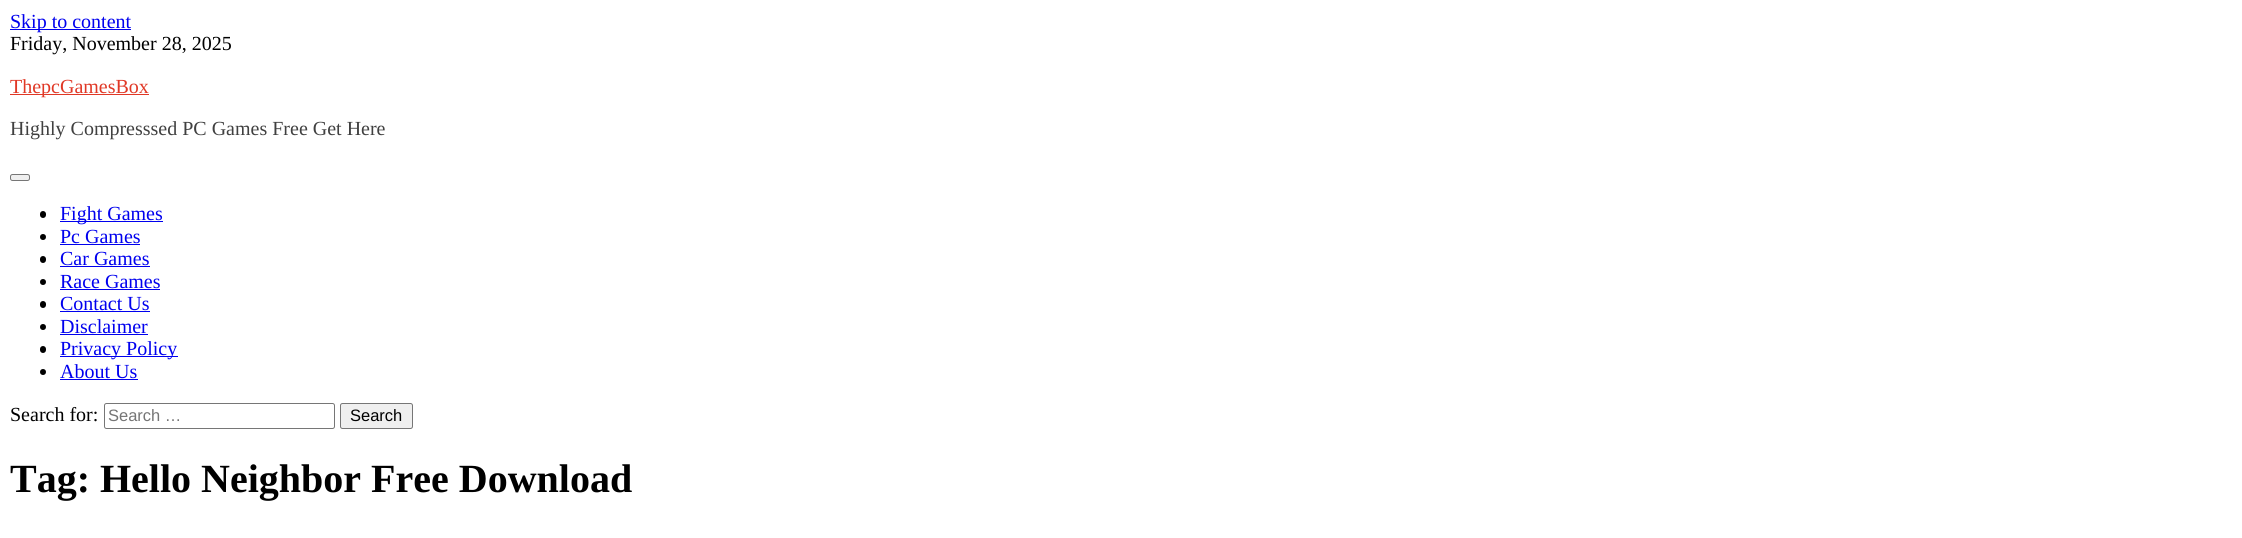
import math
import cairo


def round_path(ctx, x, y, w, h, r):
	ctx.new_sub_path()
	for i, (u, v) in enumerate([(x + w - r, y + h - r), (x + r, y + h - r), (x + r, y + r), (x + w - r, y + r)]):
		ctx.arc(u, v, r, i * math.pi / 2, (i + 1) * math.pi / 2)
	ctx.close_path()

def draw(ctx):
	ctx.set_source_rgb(1, 1, 1)
	ctx.paint()
	ctx.set_source_rgb(0, 0, 0.933)
	ctx.rectangle(10, 29, 121, 1)
	ctx.fill()
	ctx.select_font_face('Liberation Serif')
	ctx.set_font_size(20)
	ctx.move_to(10, 28)
	ctx.show_text('Skip to content')
	ctx.set_source_rgb(0, 0, 0)
	ctx.move_to(10, 50)
	ctx.show_text('Friday, November 28, 2025')
	ctx.set_source_rgb(0.878, 0.22, 0.149)
	ctx.rectangle(10, 94, 139, 1)
	ctx.fill()
	ctx.move_to(10, 93)
	ctx.show_text('ThepcGamesBox')
	ctx.set_source_rgb(0.251, 0.251, 0.251)
	ctx.move_to(10, 135)
	ctx.show_text('Highly Compresssed PC Games Free Get Here')
	ctx.set_source_rgb(0.937, 0.937, 0.937)
	round_path(ctx, 10.5, 174.5, 19, 6, 2)
	ctx.fill_preserve()
	ctx.set_source_rgb(0.463, 0.463, 0.463)
	ctx.set_line_width(1)
	ctx.stroke()
	ctx.set_source_rgb(0, 0, 0)
	round_path(ctx, 40, 211, 6, 7, 3)
	ctx.fill()
	ctx.set_source_rgb(0, 0, 0.933)
	ctx.rectangle(60, 221, 103, 1)
	ctx.fill()
	ctx.move_to(60, 220)
	ctx.show_text('Fight Games')
	ctx.set_source_rgb(0, 0, 0)
	ctx.new_path()
	ctx.arc(43, 237, 3, 0, 2 * math.pi)
	ctx.fill()
	ctx.set_source_rgb(0, 0, 0.933)
	ctx.move_to(60, 243)
	ctx.show_text('Pc Games')
	ctx.rectangle(60, 244, 80, 1)
	ctx.fill()
	ctx.set_source_rgb(0, 0, 0)
	round_path(ctx, 40, 256, 6, 7, 3)
	ctx.fill()
	ctx.set_source_rgb(0, 0, 0.933)
	ctx.move_to(60, 265)
	ctx.show_text('Car Games')
	ctx.rectangle(60, 266, 90, 1)
	ctx.fill()
	ctx.set_source_rgb(0, 0, 0)
	ctx.arc(43, 282, 3, 0, 2 * math.pi)
	ctx.fill()
	ctx.set_source_rgb(0, 0, 0.933)
	ctx.move_to(60, 288)
	ctx.show_text('Race Games')
	ctx.rectangle(60, 289, 100, 1)
	ctx.fill()
	ctx.set_source_rgb(0, 0, 0)
	round_path(ctx, 40, 301, 6, 7, 3)
	ctx.fill()
	ctx.set_source_rgb(0, 0, 0.933)
	ctx.move_to(60, 310)
	ctx.show_text('Contact Us')
	ctx.rectangle(60, 311, 90, 1)
	ctx.fill()
	ctx.set_source_rgb(0, 0, 0)
	ctx.arc(43, 327, 3, 0, 2 * math.pi)
	ctx.fill()
	ctx.set_source_rgb(0, 0, 0.933)
	ctx.move_to(60, 333)
	ctx.show_text('Disclaimer')
	ctx.rectangle(60, 334, 88, 1)
	ctx.fill()
	ctx.set_source_rgb(0, 0, 0)
	round_path(ctx, 40, 346, 6, 7, 3)
	ctx.fill()
	ctx.set_source_rgb(0, 0, 0.933)
	ctx.rectangle(60, 356, 118, 1)
	ctx.fill()
	ctx.move_to(60, 355)
	ctx.show_text('Privacy Policy')
	ctx.set_source_rgb(0, 0, 0)
	ctx.new_path()
	ctx.arc(43, 372, 3, 0, 2 * math.pi)
	ctx.fill()
	ctx.set_source_rgb(0, 0, 0.933)
	ctx.move_to(60, 378)
	ctx.show_text('About Us')
	ctx.rectangle(60, 379, 78, 1)
	ctx.fill()
	ctx.set_source_rgb(0, 0, 0)
	ctx.move_to(10, 421)
	ctx.show_text('Search for:')
	round_path(ctx, 104.5, 403.5, 230, 25, 2)
	ctx.set_source_rgb(0.463, 0.463, 0.463)
	ctx.stroke()
	ctx.select_font_face('Liberation Sans')
	ctx.set_font_size(16.5)
	ctx.set_source_rgb(0.459, 0.459, 0.459)
	ctx.move_to(108, 421)
	ctx.show_text('Search …')
	ctx.set_source_rgb(0.937, 0.937, 0.937)
	round_path(ctx, 340.5, 403.5, 72, 25, 2)
	ctx.fill_preserve()
	ctx.set_source_rgb(0.463, 0.463, 0.463)
	ctx.stroke()
	ctx.set_source_rgb(0, 0, 0)
	ctx.move_to(350, 421)
	ctx.show_text('Search')
	ctx.select_font_face('Liberation Serif', cairo.FONT_SLANT_NORMAL, cairo.FONT_WEIGHT_BOLD)
	ctx.set_font_size(40)
	ctx.move_to(10, 492)
	ctx.show_text('Tag: Hello Neighbor Free Download')


surface = cairo.ImageSurface(cairo.FORMAT_RGB24, 2242, 538)
ctx = cairo.Context(surface)
options = cairo.FontOptions()
options.set_hint_metrics(cairo.HINT_METRICS_OFF)
options.set_hint_style(cairo.HINT_STYLE_NONE)
ctx.set_font_options(options)
ctx.set_miter_limit(4)
draw(ctx)
surface.write_to_png('image.png')
